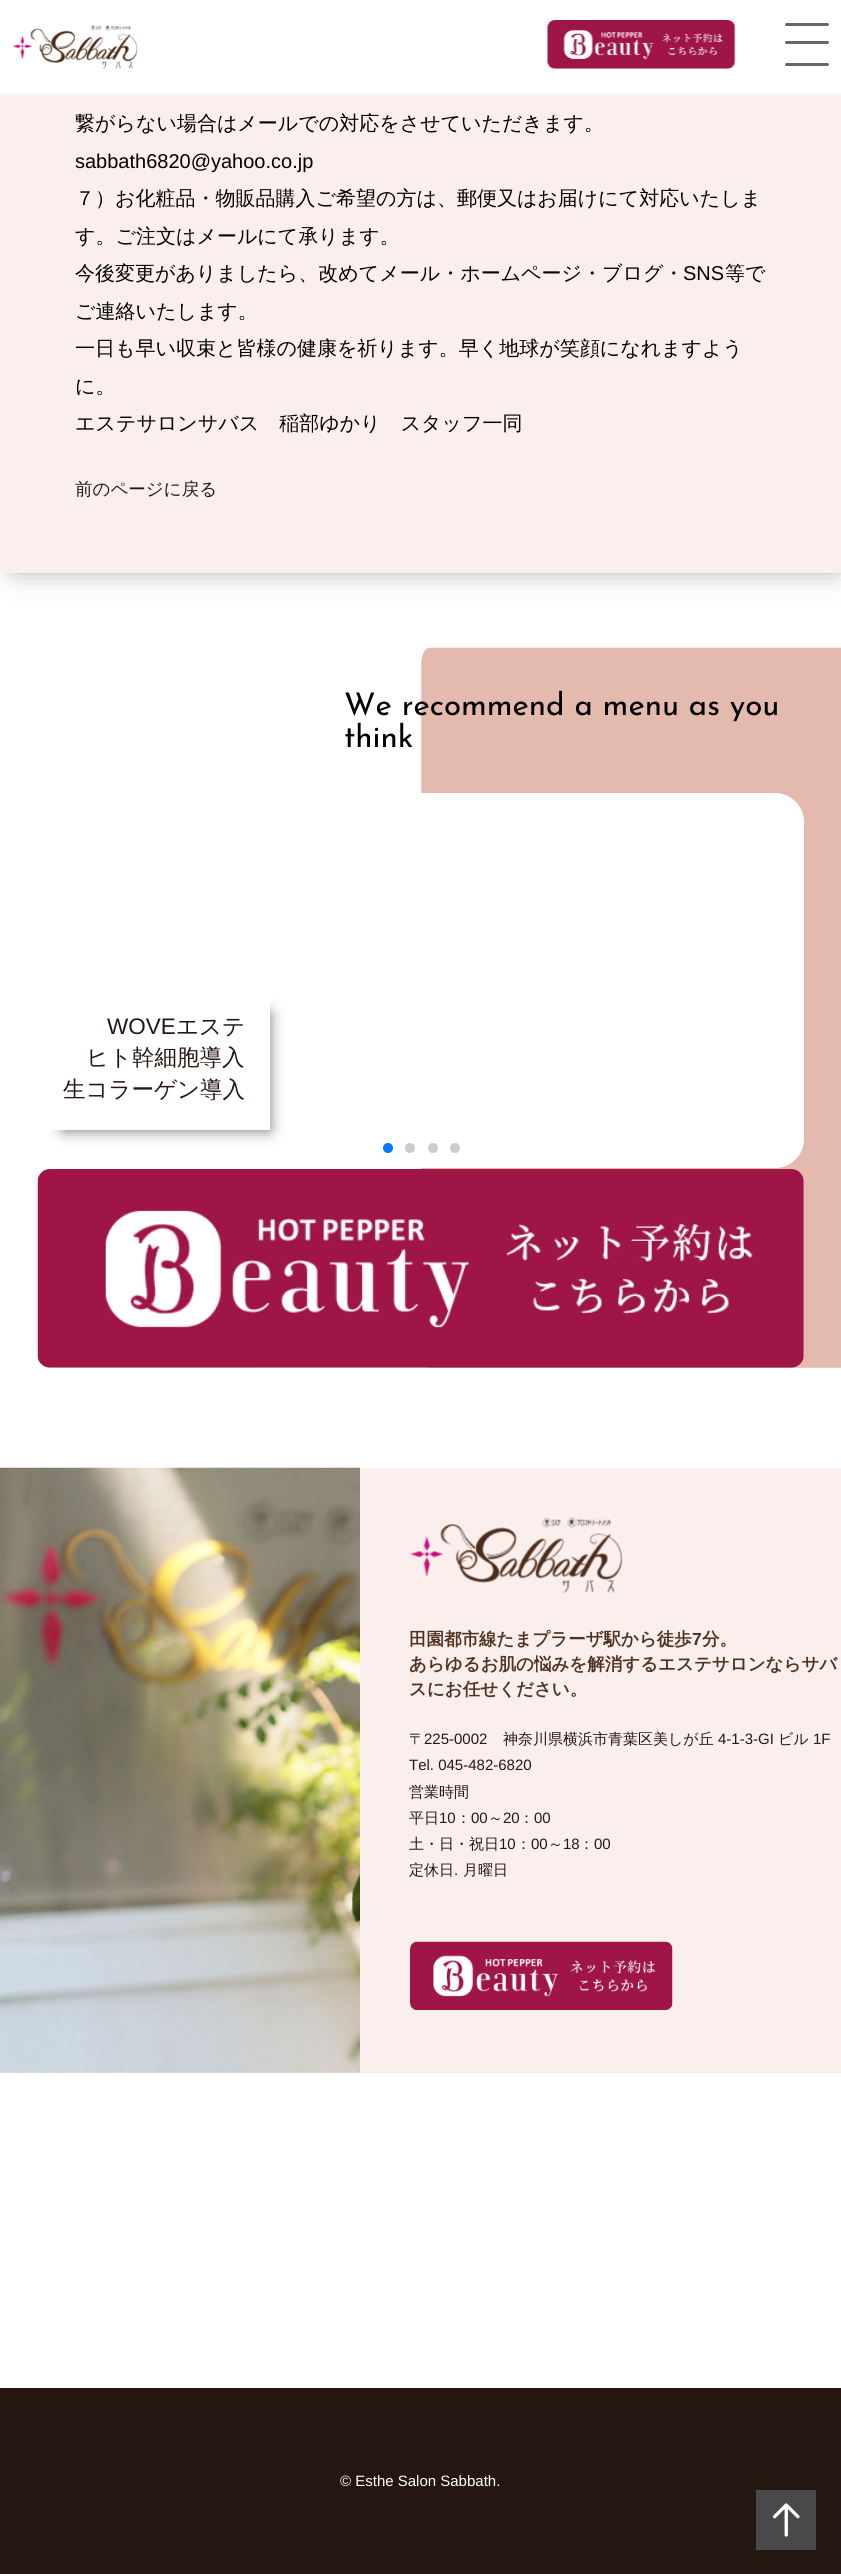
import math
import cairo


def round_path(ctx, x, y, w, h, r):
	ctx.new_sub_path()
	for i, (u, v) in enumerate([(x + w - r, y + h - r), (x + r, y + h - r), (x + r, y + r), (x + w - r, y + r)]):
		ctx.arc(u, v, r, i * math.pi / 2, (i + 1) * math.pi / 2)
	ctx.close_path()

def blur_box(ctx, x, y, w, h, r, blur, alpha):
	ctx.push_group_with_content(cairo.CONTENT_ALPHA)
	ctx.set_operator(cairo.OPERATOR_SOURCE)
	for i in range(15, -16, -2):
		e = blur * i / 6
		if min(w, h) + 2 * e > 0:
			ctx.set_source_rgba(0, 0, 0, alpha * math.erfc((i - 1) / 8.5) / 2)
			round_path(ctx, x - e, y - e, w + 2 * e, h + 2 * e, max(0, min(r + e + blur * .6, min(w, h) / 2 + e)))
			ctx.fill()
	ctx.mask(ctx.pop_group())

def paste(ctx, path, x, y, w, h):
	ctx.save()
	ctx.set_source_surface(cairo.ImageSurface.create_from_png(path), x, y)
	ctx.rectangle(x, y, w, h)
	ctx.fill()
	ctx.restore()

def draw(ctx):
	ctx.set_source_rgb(1, 1, 1)
	ctx.paint()
	ctx.set_source_rgb(0, 0, 0)
	blur_box(ctx, 15, -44, 821, 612, 0, 14.5, 0.4)
	ctx.set_source_rgb(1, 1, 1)
	ctx.rectangle(0, 0, 841, 94)
	ctx.fill()
	paste(ctx, 'media/1.png', 12, 25, 126, 44)
	paste(ctx, 'media/2.png', 547, 20, 189, 49)
	ctx.set_source_rgb(0.4, 0.4, 0.4)
	round_path(ctx, 785, 23, 44, 3, 1.5)
	ctx.fill()
	round_path(ctx, 785, 41, 44, 3, 1.5)
	ctx.fill()
	round_path(ctx, 785, 63, 44, 3, 1.5)
	ctx.fill()
	ctx.set_source_rgb(0.984, 0.937, 0.929)
	ctx.rectangle(0, 94, 841, 479)
	ctx.fill()
	ctx.select_font_face('WenQuanYi Zen Hei Medium')
	ctx.set_font_size(20)
	ctx.set_source_rgb(0, 0, 0)
	ctx.move_to(75, 130)
	ctx.show_text('繋がらない場合はメールでの対応をさせていただきます。')
	ctx.select_font_face('Liberation Sans')
	ctx.move_to(75, 168)
	ctx.show_text('sabbath6820@yahoo.co.jp')
	ctx.select_font_face('WenQuanYi Zen Hei Medium')
	for x, y, s in [
		(75, 205, '７）お化粧品・物販品購入ご希望の方は、郵便又はお届けにて対応いたしま'),
		(75, 243, 'す。ご注文はメールにて承ります。'),
		(75, 280, '今後変更がありましたら、改めてメール・ホームページ・ブログ・'),
	]:
		ctx.move_to(x, y)
		ctx.show_text(s)
	ctx.select_font_face('Liberation Sans')
	ctx.move_to(683, 280)
	ctx.show_text('SNS')
	ctx.select_font_face('WenQuanYi Zen Hei Medium')
	for x, y, s in [
		(725, 280, '等で'),
		(75, 318, 'ご連絡いたします。'),
		(75, 355, '一日も早い収束と皆様の健康を祈ります。早く地球が笑顔になれますよう'),
		(75, 393, 'に。'),
		(75, 430, 'エステサロンサバス　稲部ゆかり　スタッフ一同'),
	]:
		ctx.move_to(x, y)
		ctx.show_text(s)
	ctx.set_font_size(17.5)
	ctx.set_source_rgb(0.145, 0.086, 0.071)
	ctx.move_to(75, 495)
	ctx.show_text('前のページに戻る')
	paste(ctx, 'media/3.png', 421, 647, 420, 721)
	ctx.select_font_face('Josefin Sans Thin')
	ctx.set_font_size(31.25)
	ctx.set_source_rgb(0, 0, 0)
	ctx.move_to(344, 715)
	ctx.show_text('We recommend a menu as you')
	ctx.move_to(344, 747)
	ctx.show_text('think')
	ctx.save()
	ctx.rectangle(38, 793, 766, 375)
	ctx.clip()
	ctx.set_source_rgb(0.859, 0.859, 0.859)
	blur_box(ctx, -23, 1014, 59, 116, 0, 7.5, 0.83)
	ctx.restore()
	ctx.set_source_rgb(1, 1, 1)
	round_path(ctx, 38, 793, 766, 375, 29)
	ctx.fill()
	ctx.save()
	ctx.set_fill_rule(cairo.FILL_RULE_EVEN_ODD)
	ctx.new_path()
	ctx.move_to(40, 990)
	ctx.line_to(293, 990)
	ctx.line_to(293, 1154)
	ctx.line_to(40, 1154)
	ctx.close_path()
	ctx.move_to(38, 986)
	ctx.line_to(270, 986)
	ctx.line_to(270, 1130)
	ctx.line_to(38, 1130)
	ctx.close_path()
	ctx.clip()
	ctx.set_source_rgb(0.29, 0.286, 0.29)
	blur_box(ctx, 64, 1014, 205, 116, 0, 7.5, 0.83)
	ctx.restore()
	ctx.select_font_face('Liberation Sans')
	ctx.set_font_size(22.5)
	ctx.set_source_rgb(0.145, 0.086, 0.071)
	ctx.move_to(107, 1034)
	ctx.show_text('WOVE')
	ctx.select_font_face('WenQuanYi Zen Hei Medium')
	for x, y, s in [
		(176, 1034, 'エステ'),
		(86, 1065, 'ヒト幹細胞導入'),
		(63, 1097, '生コラーゲン導入'),
	]:
		ctx.move_to(x, y)
		ctx.show_text(s)
	ctx.set_source_rgb(0, 0.478, 1)
	ctx.new_path()
	ctx.arc(388, 1148, 5, 0, 2 * math.pi)
	ctx.fill()
	ctx.set_source_rgb(0.8, 0.8, 0.8)
	ctx.arc(410, 1148, 5, 0, 2 * math.pi)
	ctx.fill()
	ctx.arc(433, 1148, 5, 0, 2 * math.pi)
	ctx.fill()
	ctx.arc(455, 1148, 5, 0, 2 * math.pi)
	ctx.fill()
	paste(ctx, 'media/4.png', 37, 1169, 767, 199)
	ctx.set_source_rgb(0.984, 0.937, 0.929)
	ctx.rectangle(0, 1468, 841, 605)
	ctx.fill()
	paste(ctx, 'media/5.png', 0, 1467, 360, 606)
	paste(ctx, 'media/6.png', 410, 1517, 213, 76)
	ctx.select_font_face('WenQuanYi Zen Hei', cairo.FONT_SLANT_NORMAL, cairo.FONT_WEIGHT_BOLD)
	ctx.set_font_size(17.5)
	ctx.set_source_rgb(0.318, 0.196, 0.125)
	ctx.move_to(409, 1645)
	ctx.show_text('田園都市線たまプラーザ駅から徒歩')
	ctx.select_font_face('Liberation Sans', cairo.FONT_SLANT_NORMAL, cairo.FONT_WEIGHT_BOLD)
	ctx.move_to(692, 1645)
	ctx.show_text('7')
	ctx.select_font_face('WenQuanYi Zen Hei', cairo.FONT_SLANT_NORMAL, cairo.FONT_WEIGHT_BOLD)
	for x, y, s in [
		(702, 1645, '分。'),
		(409, 1670, 'あらゆるお肌の悩みを解消するエステサロンならサバ'),
		(409, 1695, 'スにお任せください。'),
	]:
		ctx.move_to(x, y)
		ctx.show_text(s)
	ctx.select_font_face('WenQuanYi Zen Hei Medium')
	ctx.set_font_size(15)
	ctx.set_source_rgb(0.145, 0.086, 0.071)
	ctx.move_to(409, 1744)
	ctx.show_text('〒')
	ctx.select_font_face('Liberation Sans')
	ctx.move_to(424, 1744)
	ctx.show_text('225-0002')
	ctx.select_font_face('WenQuanYi Zen Hei Medium')
	ctx.move_to(503, 1744)
	ctx.show_text('神奈川県横浜市青葉区美しが丘')
	ctx.select_font_face('Liberation Sans')
	ctx.move_to(718, 1744)
	ctx.show_text('4-1-3-GI')
	ctx.select_font_face('WenQuanYi Zen Hei Medium')
	ctx.move_to(778, 1744)
	ctx.show_text('ビル')
	ctx.select_font_face('Liberation Sans')
	ctx.move_to(813, 1744)
	ctx.show_text('1F')
	ctx.move_to(409, 1770)
	ctx.show_text('Tel. 045-482-6820')
	ctx.select_font_face('WenQuanYi Zen Hei Medium')
	ctx.move_to(409, 1797)
	ctx.show_text('営業時間')
	ctx.move_to(409, 1823)
	ctx.show_text('平日')
	ctx.select_font_face('Liberation Sans')
	ctx.move_to(439, 1823)
	ctx.show_text('10')
	ctx.select_font_face('WenQuanYi Zen Hei Medium')
	ctx.move_to(456, 1823)
	ctx.show_text('：')
	ctx.select_font_face('Liberation Sans')
	ctx.move_to(471, 1823)
	ctx.show_text('00')
	ctx.select_font_face('WenQuanYi Zen Hei Medium')
	ctx.move_to(488, 1823)
	ctx.show_text('～')
	ctx.select_font_face('Liberation Sans')
	ctx.move_to(503, 1823)
	ctx.show_text('20')
	ctx.select_font_face('WenQuanYi Zen Hei Medium')
	ctx.move_to(519, 1823)
	ctx.show_text('：')
	ctx.select_font_face('Liberation Sans')
	ctx.move_to(534, 1823)
	ctx.show_text('00')
	ctx.select_font_face('WenQuanYi Zen Hei Medium')
	ctx.move_to(409, 1849)
	ctx.show_text('土・日・祝日')
	ctx.select_font_face('Liberation Sans')
	ctx.move_to(499, 1849)
	ctx.show_text('10')
	ctx.select_font_face('WenQuanYi Zen Hei Medium')
	ctx.move_to(516, 1849)
	ctx.show_text('：')
	ctx.select_font_face('Liberation Sans')
	ctx.move_to(531, 1849)
	ctx.show_text('00')
	ctx.select_font_face('WenQuanYi Zen Hei Medium')
	ctx.move_to(548, 1849)
	ctx.show_text('～')
	ctx.select_font_face('Liberation Sans')
	ctx.move_to(563, 1849)
	ctx.show_text('18')
	ctx.select_font_face('WenQuanYi Zen Hei Medium')
	ctx.move_to(579, 1849)
	ctx.show_text('：')
	ctx.select_font_face('Liberation Sans')
	ctx.move_to(594, 1849)
	ctx.show_text('00')
	ctx.select_font_face('WenQuanYi Zen Hei Medium')
	ctx.move_to(409, 1875)
	ctx.show_text('定休日')
	ctx.select_font_face('Liberation Sans')
	ctx.move_to(454, 1875)
	ctx.show_text('.')
	ctx.select_font_face('WenQuanYi Zen Hei Medium')
	ctx.move_to(463, 1875)
	ctx.show_text('月曜日')
	paste(ctx, 'media/7.png', 410, 1941, 263, 70)
	ctx.rectangle(0, 2388, 841, 186)
	ctx.fill()
	ctx.select_font_face('Liberation Sans')
	ctx.set_source_rgb(1, 1, 1)
	ctx.move_to(340, 2486)
	ctx.show_text('© Esthe Salon Sabbath.')
	ctx.set_source_rgb(0.286, 0.286, 0.286)
	ctx.rectangle(756, 2490, 60, 60)
	ctx.fill()
	paste(ctx, 'media/8.png', 772, 2503, 28, 34)


surface = cairo.ImageSurface(cairo.FORMAT_RGB24, 841, 2574)
ctx = cairo.Context(surface)
options = cairo.FontOptions()
options.set_hint_metrics(cairo.HINT_METRICS_OFF)
options.set_hint_style(cairo.HINT_STYLE_NONE)
ctx.set_font_options(options)
ctx.set_miter_limit(4)
draw(ctx)
surface.write_to_png('image.png')
